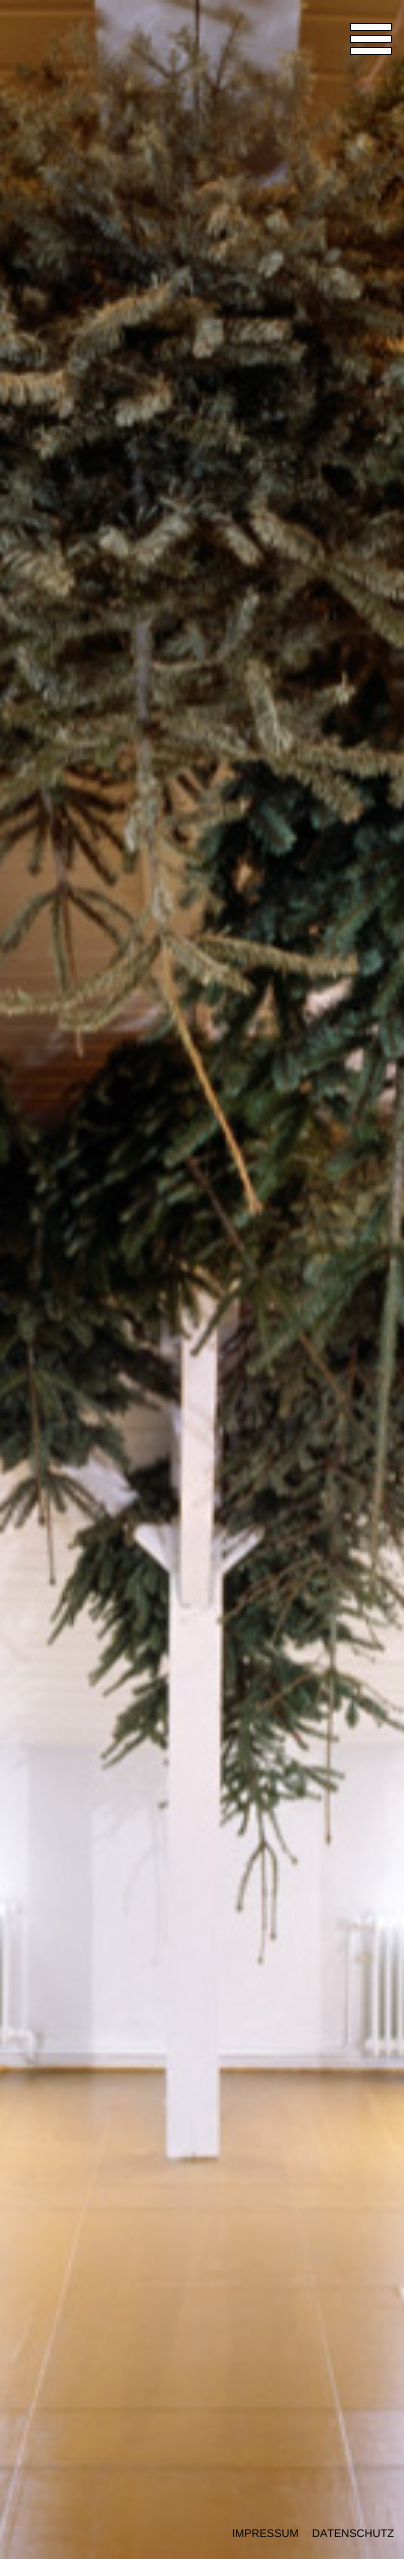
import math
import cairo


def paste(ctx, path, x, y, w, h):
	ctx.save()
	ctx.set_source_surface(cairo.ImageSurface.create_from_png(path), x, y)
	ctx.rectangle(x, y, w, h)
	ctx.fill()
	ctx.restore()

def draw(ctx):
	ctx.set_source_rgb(1, 1, 1)
	ctx.paint()
	paste(ctx, 'media/1.png', 0, 0, 404, 2559)
	ctx.set_source_rgb(1, 1, 1)
	ctx.rectangle(350.5, 35.5, 41, 7)
	ctx.fill_preserve()
	ctx.set_source_rgb(0, 0, 0)
	ctx.set_line_width(1)
	ctx.stroke()
	ctx.set_source_rgb(1, 1, 1)
	ctx.rectangle(350.5, 23.5, 41, 7)
	ctx.fill_preserve()
	ctx.set_source_rgb(0, 0, 0)
	ctx.stroke()
	ctx.set_source_rgb(1, 1, 1)
	ctx.rectangle(350.5, 47.5, 41, 7)
	ctx.fill_preserve()
	ctx.set_source_rgb(0, 0, 0)
	ctx.stroke()
	ctx.select_font_face('Liberation Sans')
	ctx.set_font_size(11)
	ctx.move_to(232, 2537)
	ctx.show_text('IMPRESSUM')
	ctx.move_to(312, 2537)
	ctx.show_text('DATENSCHUTZ')


surface = cairo.ImageSurface(cairo.FORMAT_RGB24, 404, 2559)
ctx = cairo.Context(surface)
options = cairo.FontOptions()
options.set_hint_metrics(cairo.HINT_METRICS_OFF)
options.set_hint_style(cairo.HINT_STYLE_NONE)
ctx.set_font_options(options)
ctx.set_miter_limit(4)
draw(ctx)
surface.write_to_png('image.png')
